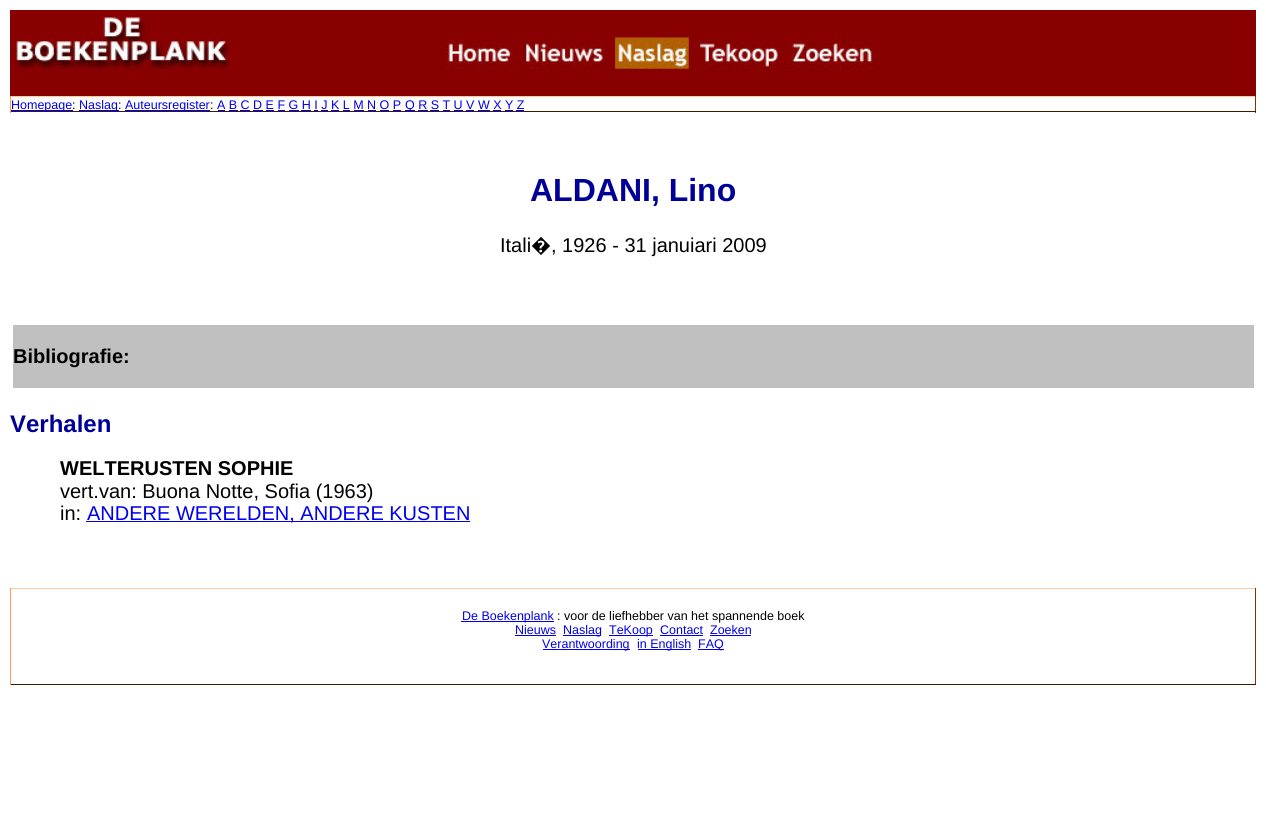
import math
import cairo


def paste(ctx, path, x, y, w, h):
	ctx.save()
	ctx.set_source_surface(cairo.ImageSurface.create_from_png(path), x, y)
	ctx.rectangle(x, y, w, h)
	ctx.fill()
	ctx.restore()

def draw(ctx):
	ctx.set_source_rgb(1, 1, 1)
	ctx.paint()
	ctx.set_source_rgb(0.533, 0, 0)
	ctx.rectangle(10, 10, 1246, 86)
	ctx.fill()
	paste(ctx, 'media/1.png', 10, 10, 220, 59)
	paste(ctx, 'media/2.png', 445, 30, 430, 40)
	ctx.set_source_rgb(1, 0.784, 0.643)
	ctx.rectangle(10, 96, 1246, 1)
	ctx.fill()
	ctx.set_source_rgb(0.49, 0.2, 0.008)
	ctx.rectangle(1255, 96, 1, 17)
	ctx.fill()
	ctx.set_source_rgb(0.247, 0.102, 0.004)
	ctx.rectangle(10, 111, 1246, 1)
	ctx.fill()
	ctx.set_source_rgb(1, 0.604, 0.341)
	ctx.rectangle(10, 96, 1, 17)
	ctx.fill()
	ctx.set_source_rgb(0, 0, 0.933)
	ctx.rectangle(11, 110, 62, 1)
	ctx.fill()
	ctx.select_font_face('Liberation Sans')
	ctx.set_font_size(12.5)
	ctx.move_to(11, 109)
	ctx.show_text('Homepage')
	ctx.set_source_rgb(0, 0, 0)
	ctx.move_to(72, 109)
	ctx.show_text(':')
	ctx.set_source_rgb(0, 0, 0.933)
	ctx.rectangle(79, 110, 40, 1)
	ctx.fill()
	ctx.move_to(79, 109)
	ctx.show_text('Naslag')
	ctx.set_source_rgb(0, 0, 0)
	ctx.move_to(118, 109)
	ctx.show_text(':')
	ctx.set_source_rgb(0, 0, 0.933)
	ctx.rectangle(125, 110, 85, 1)
	ctx.fill()
	ctx.move_to(125, 109)
	ctx.show_text('Auteursregister')
	ctx.set_source_rgb(0, 0, 0)
	ctx.move_to(210, 109)
	ctx.show_text(':')
	ctx.set_source_rgb(0, 0, 0.933)
	ctx.move_to(217, 109)
	ctx.show_text('A B C D E F G H I J K L M N O P')
	ctx.rectangle(218, 110, 7, 1)
	ctx.rectangle(229, 110, 9, 1)
	ctx.rectangle(240, 110, 10, 1)
	ctx.rectangle(253, 110, 10, 1)
	ctx.rectangle(266, 110, 8, 1)
	ctx.rectangle(278, 110, 7, 1)
	ctx.rectangle(289, 110, 10, 1)
	ctx.rectangle(301, 110, 10, 1)
	ctx.rectangle(314, 110, 4, 1)
	ctx.rectangle(321, 110, 7, 1)
	ctx.rectangle(331, 110, 8, 1)
	ctx.rectangle(343, 110, 7, 1)
	ctx.rectangle(354, 110, 10, 1)
	ctx.rectangle(368, 110, 8, 1)
	ctx.rectangle(380, 110, 9, 1)
	ctx.rectangle(393, 110, 8, 1)
	ctx.rectangle(405, 110, 10, 1)
	ctx.fill()
	ctx.move_to(405, 109)
	ctx.show_text('Q R S T U V W X Y Z')
	ctx.rectangle(418, 110, 10, 1)
	ctx.rectangle(430, 110, 9, 1)
	ctx.rectangle(443, 110, 7, 1)
	ctx.rectangle(454, 110, 9, 1)
	ctx.rectangle(466, 110, 8, 1)
	ctx.rectangle(478, 110, 12, 1)
	ctx.rectangle(493, 110, 8, 1)
	ctx.rectangle(505, 110, 8, 1)
	ctx.rectangle(516, 110, 8, 1)
	ctx.fill()
	ctx.select_font_face('Liberation Sans', cairo.FONT_SLANT_NORMAL, cairo.FONT_WEIGHT_BOLD)
	ctx.set_font_size(32)
	ctx.set_source_rgb(0, 0, 0.6)
	ctx.move_to(530, 201)
	ctx.show_text('ALDANI, Lino')
	ctx.select_font_face('Liberation Sans')
	ctx.set_font_size(20)
	ctx.set_source_rgb(0, 0, 0)
	ctx.move_to(500, 252)
	ctx.show_text('Itali')
	ctx.select_font_face('Noto Sans')
	ctx.move_to(531, 252)
	ctx.show_text('�')
	ctx.select_font_face('Liberation Sans')
	ctx.move_to(551, 252)
	ctx.show_text(', 1926 - 31 januiari 2009')
	ctx.set_source_rgb(0.753, 0.753, 0.753)
	ctx.rectangle(13, 325, 1241, 63)
	ctx.fill()
	ctx.select_font_face('Liberation Sans', cairo.FONT_SLANT_NORMAL, cairo.FONT_WEIGHT_BOLD)
	ctx.set_source_rgb(0, 0, 0)
	ctx.move_to(13, 363)
	ctx.show_text('Bibliografie:')
	ctx.set_font_size(24)
	ctx.set_source_rgb(0, 0, 0.6)
	ctx.move_to(10, 432)
	ctx.show_text('Verhalen')
	ctx.set_font_size(20)
	ctx.set_source_rgb(0, 0, 0)
	ctx.move_to(60, 475)
	ctx.show_text('WELTERUSTEN SOPHIE')
	ctx.select_font_face('Liberation Sans')
	ctx.move_to(60, 498)
	ctx.show_text('vert.van: Buona Notte, Sofia (1963)')
	ctx.move_to(60, 520)
	ctx.show_text('in:')
	ctx.set_source_rgb(0, 0, 0.933)
	ctx.rectangle(86, 521, 384, 1)
	ctx.fill()
	ctx.move_to(87, 520)
	ctx.show_text('ANDERE WERELDEN, ANDERE KUSTEN')
	ctx.set_source_rgb(1, 0.784, 0.643)
	ctx.rectangle(10, 588, 1246, 1)
	ctx.fill()
	ctx.set_source_rgb(0.49, 0.2, 0.008)
	ctx.rectangle(1255, 588, 1, 97)
	ctx.fill()
	ctx.set_source_rgb(0.247, 0.102, 0.004)
	ctx.rectangle(10, 684, 1246, 1)
	ctx.fill()
	ctx.set_source_rgb(1, 0.604, 0.341)
	ctx.rectangle(10, 588, 1, 97)
	ctx.fill()
	ctx.set_source_rgb(0, 0, 0.933)
	ctx.rectangle(461, 621, 93, 1)
	ctx.fill()
	ctx.set_font_size(12.5)
	ctx.move_to(462, 620)
	ctx.show_text('De Boekenplank')
	ctx.set_source_rgb(0, 0, 0)
	ctx.move_to(557, 620)
	ctx.show_text(': voor de liefhebber van het spannende boek')
	ctx.set_source_rgb(0, 0, 0.933)
	ctx.move_to(515, 634)
	ctx.show_text('Nieuws')
	ctx.rectangle(515, 635, 41, 1)
	ctx.fill()
	ctx.rectangle(563, 635, 38, 1)
	ctx.fill()
	ctx.move_to(563, 634)
	ctx.show_text('Naslag')
	ctx.rectangle(609, 635, 44, 1)
	ctx.fill()
	ctx.move_to(609, 634)
	ctx.show_text('TeKoop')
	ctx.move_to(660, 634)
	ctx.show_text('Contact')
	ctx.rectangle(660, 635, 43, 1)
	ctx.fill()
	ctx.move_to(710, 634)
	ctx.show_text('Zoeken')
	ctx.rectangle(710, 635, 41, 1)
	ctx.fill()
	ctx.rectangle(543, 649, 87, 1)
	ctx.fill()
	ctx.move_to(542, 648)
	ctx.show_text('Verantwoording')
	ctx.rectangle(638, 649, 53, 1)
	ctx.fill()
	ctx.move_to(637, 648)
	ctx.show_text('in English')
	ctx.rectangle(698, 649, 26, 1)
	ctx.fill()
	ctx.move_to(698, 648)
	ctx.show_text('FAQ')


surface = cairo.ImageSurface(cairo.FORMAT_RGB24, 1266, 839)
ctx = cairo.Context(surface)
options = cairo.FontOptions()
options.set_hint_metrics(cairo.HINT_METRICS_OFF)
options.set_hint_style(cairo.HINT_STYLE_NONE)
ctx.set_font_options(options)
ctx.set_miter_limit(4)
draw(ctx)
surface.write_to_png('image.png')
